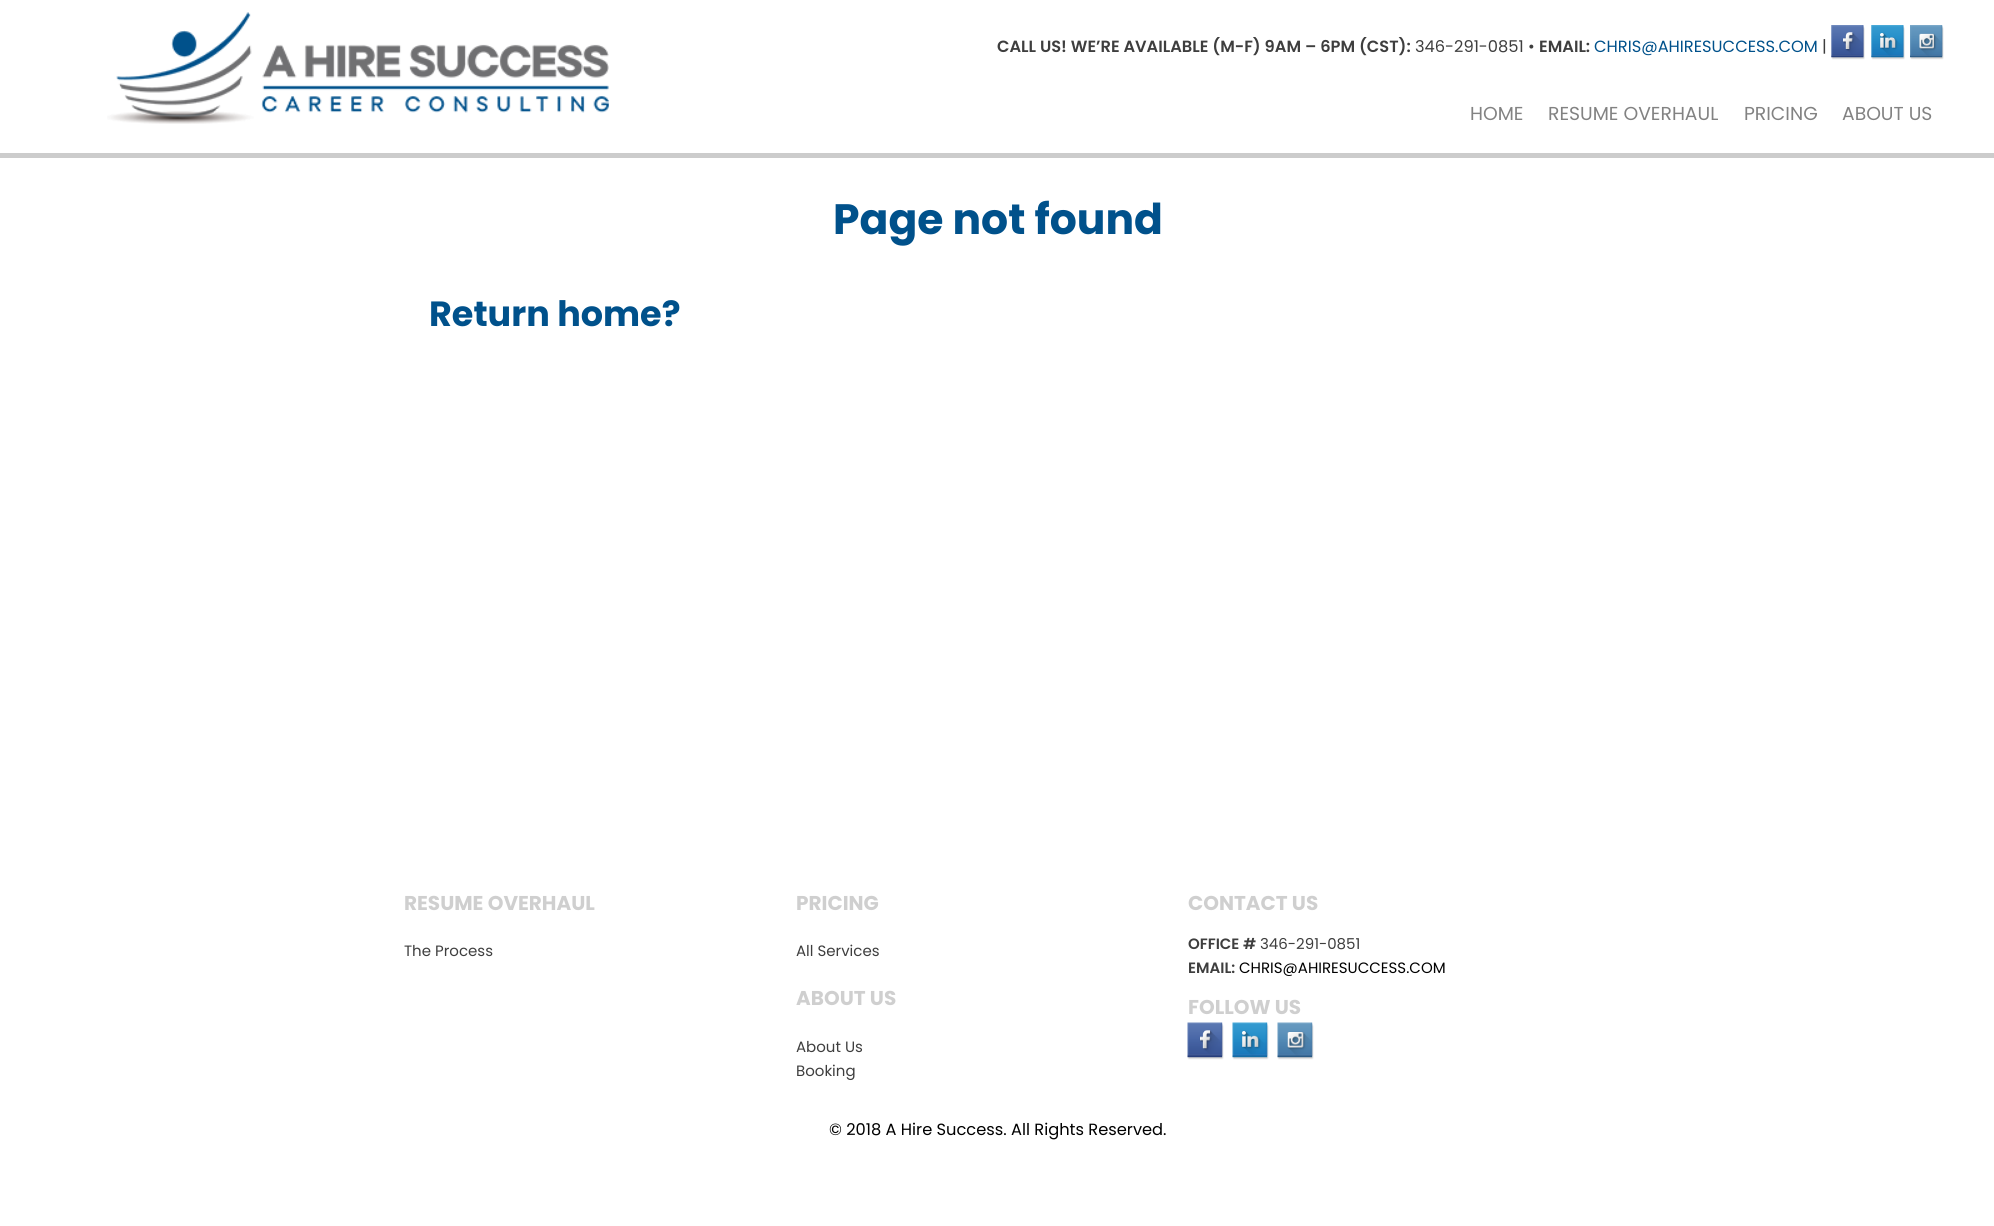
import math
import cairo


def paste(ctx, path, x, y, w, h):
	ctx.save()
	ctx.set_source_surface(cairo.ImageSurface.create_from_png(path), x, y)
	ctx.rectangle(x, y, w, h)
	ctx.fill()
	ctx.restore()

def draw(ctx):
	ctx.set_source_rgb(1, 1, 1)
	ctx.paint()
	ctx.set_source_rgb(0.8, 0.8, 0.8)
	ctx.rectangle(0, 153, 1994, 5)
	ctx.fill()
	paste(ctx, 'media/1.png', 107, 12, 502, 112)
	ctx.select_font_face('Poppins SemiBold')
	ctx.set_font_size(16.25)
	ctx.set_source_rgb(0.243, 0.243, 0.243)
	ctx.move_to(997, 52)
	ctx.show_text('CALL US! WE’RE AVAILABLE (M-F) 9AM – 6PM (CST):')
	ctx.select_font_face('Poppins')
	ctx.move_to(1415, 52)
	ctx.show_text('346-291-0851 •')
	ctx.select_font_face('Poppins SemiBold')
	ctx.move_to(1539, 52)
	ctx.show_text('EMAIL:')
	ctx.select_font_face('Poppins')
	ctx.set_source_rgb(0, 0.318, 0.545)
	ctx.move_to(1594, 52)
	ctx.show_text('CHRIS@AHIRESUCCESS.COM')
	ctx.set_source_rgb(0.243, 0.243, 0.243)
	ctx.move_to(1822, 52)
	ctx.show_text('|')
	paste(ctx, 'media/2.png', 1831, 25, 34, 35)
	paste(ctx, 'media/3.png', 1871, 25, 34, 35)
	paste(ctx, 'media/4.png', 1910, 25, 34, 35)
	ctx.set_font_size(18.75)
	ctx.set_source_rgb(0.51, 0.51, 0.51)
	for x, y, s in [
		(1470, 120, 'HOME'),
		(1548, 120, 'RESUME OVERHAUL'),
		(1744, 120, 'PRICING'),
		(1842, 120, 'ABOUT US'),
	]:
		ctx.move_to(x, y)
		ctx.show_text(s)
	ctx.select_font_face('Poppins', cairo.FONT_SLANT_NORMAL, cairo.FONT_WEIGHT_BOLD)
	ctx.set_font_size(42.5)
	ctx.set_source_rgb(0, 0.318, 0.545)
	ctx.move_to(833, 234)
	ctx.show_text('Page not found')
	ctx.set_font_size(35)
	ctx.move_to(429, 326)
	ctx.show_text('Return home?')
	ctx.set_font_size(20)
	ctx.set_source_rgb(0.812, 0.812, 0.812)
	ctx.move_to(404, 910)
	ctx.show_text('RESUME OVERHAUL')
	ctx.select_font_face('Poppins')
	ctx.set_font_size(15)
	ctx.set_source_rgb(0.243, 0.243, 0.243)
	ctx.move_to(404, 956)
	ctx.show_text('The Process')
	ctx.select_font_face('Poppins', cairo.FONT_SLANT_NORMAL, cairo.FONT_WEIGHT_BOLD)
	ctx.set_font_size(20)
	ctx.set_source_rgb(0.812, 0.812, 0.812)
	ctx.move_to(796, 910)
	ctx.show_text('PRICING')
	ctx.select_font_face('Poppins')
	ctx.set_font_size(15)
	ctx.set_source_rgb(0.243, 0.243, 0.243)
	ctx.move_to(796, 956)
	ctx.show_text('All Services')
	ctx.select_font_face('Poppins', cairo.FONT_SLANT_NORMAL, cairo.FONT_WEIGHT_BOLD)
	ctx.set_font_size(20)
	ctx.set_source_rgb(0.812, 0.812, 0.812)
	ctx.move_to(796, 1005)
	ctx.show_text('ABOUT US')
	ctx.select_font_face('Poppins')
	ctx.set_font_size(15)
	ctx.set_source_rgb(0.243, 0.243, 0.243)
	ctx.move_to(796, 1052)
	ctx.show_text('About Us')
	ctx.move_to(796, 1076)
	ctx.show_text('Booking')
	ctx.select_font_face('Poppins', cairo.FONT_SLANT_NORMAL, cairo.FONT_WEIGHT_BOLD)
	ctx.set_font_size(20)
	ctx.set_source_rgb(0.812, 0.812, 0.812)
	ctx.move_to(1188, 910)
	ctx.show_text('CONTACT US')
	ctx.select_font_face('Poppins SemiBold')
	ctx.set_font_size(15)
	ctx.set_source_rgb(0.243, 0.243, 0.243)
	ctx.move_to(1188, 949)
	ctx.show_text('OFFICE #')
	ctx.select_font_face('Poppins')
	ctx.move_to(1260, 949)
	ctx.show_text('346-291-0851')
	ctx.select_font_face('Poppins SemiBold')
	ctx.move_to(1188, 973)
	ctx.show_text('EMAIL:')
	ctx.select_font_face('Poppins')
	ctx.set_source_rgb(0, 0, 0)
	ctx.move_to(1239, 973)
	ctx.show_text('CHRIS@AHIRESUCCESS.COM')
	ctx.select_font_face('Poppins', cairo.FONT_SLANT_NORMAL, cairo.FONT_WEIGHT_BOLD)
	ctx.set_font_size(20)
	ctx.set_source_rgb(0.812, 0.812, 0.812)
	ctx.move_to(1188, 1014)
	ctx.show_text('FOLLOW US')
	paste(ctx, 'media/5.png', 1187, 1022, 37, 38)
	paste(ctx, 'media/6.png', 1232, 1022, 37, 38)
	paste(ctx, 'media/7.png', 1277, 1022, 37, 38)
	ctx.select_font_face('Poppins')
	ctx.set_font_size(16.25)
	ctx.set_source_rgb(0, 0, 0)
	ctx.move_to(829, 1135)
	ctx.show_text('© 2018 A Hire Success. All Rights Reserved.')


surface = cairo.ImageSurface(cairo.FORMAT_RGB24, 1994, 1226)
ctx = cairo.Context(surface)
options = cairo.FontOptions()
options.set_hint_metrics(cairo.HINT_METRICS_OFF)
options.set_hint_style(cairo.HINT_STYLE_NONE)
ctx.set_font_options(options)
ctx.set_miter_limit(4)
draw(ctx)
surface.write_to_png('image.png')
